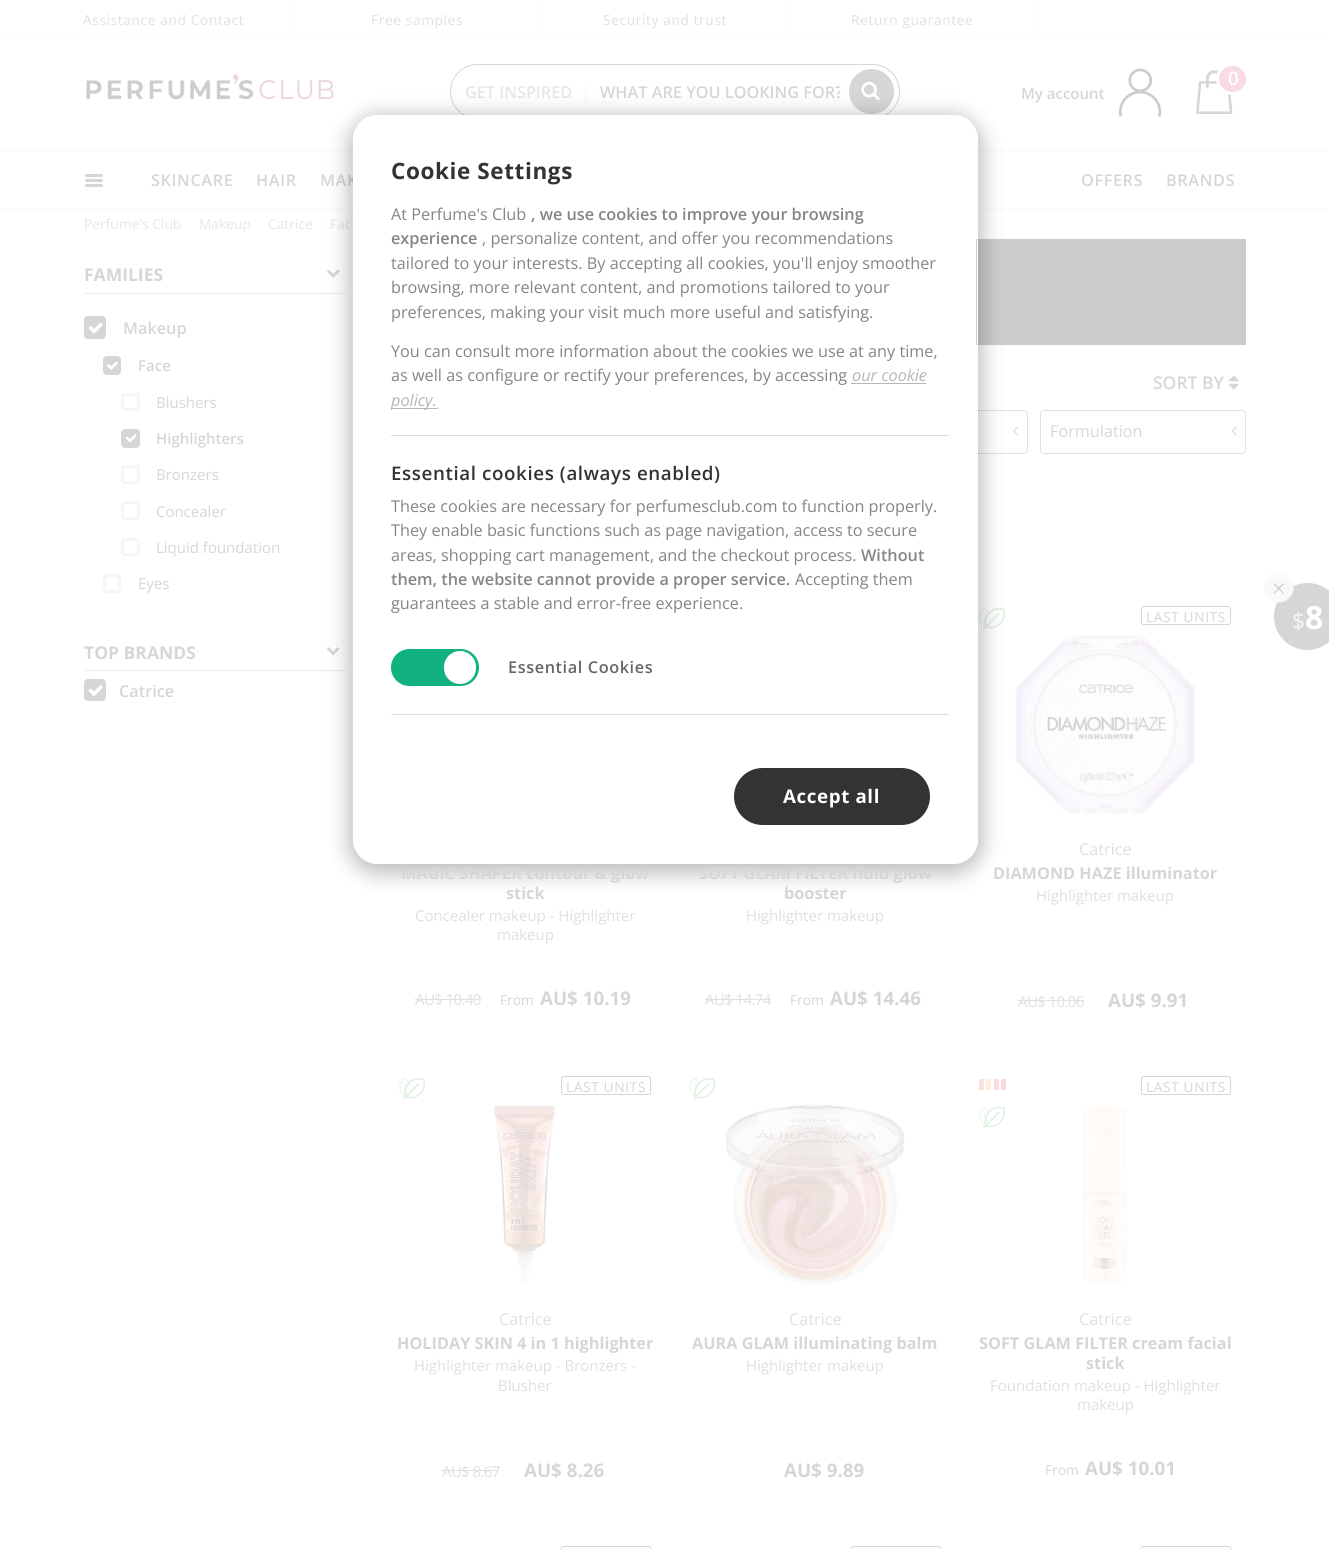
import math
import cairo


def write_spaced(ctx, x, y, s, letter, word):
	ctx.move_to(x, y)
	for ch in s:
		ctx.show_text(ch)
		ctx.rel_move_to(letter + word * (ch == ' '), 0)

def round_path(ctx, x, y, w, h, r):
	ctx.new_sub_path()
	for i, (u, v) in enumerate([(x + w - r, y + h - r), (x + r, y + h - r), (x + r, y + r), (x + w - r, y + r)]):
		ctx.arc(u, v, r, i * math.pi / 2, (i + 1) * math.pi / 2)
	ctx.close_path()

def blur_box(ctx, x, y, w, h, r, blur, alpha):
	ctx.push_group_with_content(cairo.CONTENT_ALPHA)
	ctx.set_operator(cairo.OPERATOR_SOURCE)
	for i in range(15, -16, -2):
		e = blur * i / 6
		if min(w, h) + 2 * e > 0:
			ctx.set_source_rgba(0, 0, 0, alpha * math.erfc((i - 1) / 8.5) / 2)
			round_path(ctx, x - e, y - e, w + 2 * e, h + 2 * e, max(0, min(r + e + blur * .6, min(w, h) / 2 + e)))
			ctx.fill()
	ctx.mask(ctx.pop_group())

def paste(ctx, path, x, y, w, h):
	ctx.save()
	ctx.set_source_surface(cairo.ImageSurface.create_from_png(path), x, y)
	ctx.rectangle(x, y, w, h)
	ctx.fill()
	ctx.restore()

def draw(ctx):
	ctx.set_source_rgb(1, 1, 1)
	ctx.paint()
	ctx.set_source_rgb(0.988, 0.988, 0.988)
	ctx.rectangle(0, 38, 1329, 1)
	ctx.fill()
	ctx.select_font_face('Open Sans')
	ctx.set_font_size(13.75)
	ctx.set_source_rgb(0.878, 0.878, 0.878)
	write_spaced(ctx, 83, 25, 'Assistance and Contact', 0.6, 0)
	ctx.set_source_rgb(0.988, 0.988, 0.988)
	ctx.rectangle(293, 0, 1, 39)
	ctx.fill()
	ctx.set_source_rgb(0.878, 0.878, 0.878)
	write_spaced(ctx, 371, 25, 'Free samples', 0.6, 0)
	ctx.set_source_rgb(0.988, 0.988, 0.988)
	ctx.rectangle(540, 0, 1, 39)
	ctx.fill()
	ctx.set_source_rgb(0.878, 0.878, 0.878)
	write_spaced(ctx, 603, 25, 'Security and trust', 0.6, 0)
	ctx.set_source_rgb(0.988, 0.988, 0.988)
	ctx.rectangle(789, 0, 1, 39)
	ctx.fill()
	ctx.set_source_rgb(0.878, 0.878, 0.878)
	write_spaced(ctx, 851, 25, 'Return guarantee', 0.6, 0)
	ctx.set_source_rgb(0.988, 0.988, 0.988)
	ctx.rectangle(1036, 0, 1, 39)
	ctx.fill()
	paste(ctx, 'media/1.png', 86, 74, 248, 26)
	round_path(ctx, 450.5, 64.5, 449, 54, 27)
	ctx.set_source_rgb(0.839, 0.839, 0.839)
	ctx.set_line_width(1)
	ctx.stroke()
	ctx.set_source_rgb(0.961, 0.961, 0.961)
	ctx.rectangle(585, 84, 1, 19)
	ctx.fill()
	ctx.select_font_face('Open Sans SemiBold')
	ctx.set_font_size(16.25)
	ctx.set_source_rgb(0.906, 0.906, 0.906)
	ctx.move_to(465, 98)
	ctx.show_text('GET INSPIRED')
	ctx.save()
	ctx.rectangle(600, 80, 240, 23)
	ctx.clip()
	ctx.set_source_rgb(0.839, 0.839, 0.839)
	ctx.move_to(600, 98)
	ctx.show_text('WHAT ARE YOU LOOKING FOR?')
	ctx.restore()
	ctx.set_source_rgb(0.839, 0.839, 0.839)
	ctx.new_path()
	ctx.arc(871.5, 91.5, 22.5, 0, 2 * math.pi)
	ctx.fill()
	paste(ctx, 'media/2.png', 861, 81, 19, 20)
	paste(ctx, 'media/3.png', 1196, 70, 37, 44)
	ctx.set_source_rgb(0.976, 0.859, 0.906)
	round_path(ctx, 1217.5, 64.5, 30, 29, 14.5)
	ctx.fill_preserve()
	ctx.set_source_rgb(1, 1, 1)
	ctx.set_line_width(3)
	ctx.stroke()
	ctx.set_font_size(18.75)
	write_spaced(ctx, 1228, 85, '0', -1, 0)
	ctx.set_font_size(15)
	ctx.set_source_rgb(0.839, 0.839, 0.839)
	ctx.move_to(1021, 99)
	ctx.show_text('My account')
	paste(ctx, 'media/4.png', 1118, 68, 44, 49)
	ctx.set_source_rgb(0.973, 0.973, 0.973)
	ctx.rectangle(0, 151, 1329, 1)
	ctx.fill()
	ctx.rectangle(0, 208, 1329, 1)
	ctx.fill()
	ctx.set_source_rgb(0.839, 0.839, 0.839)
	round_path(ctx, 85, 179, 18, 3, 1.5)
	ctx.fill()
	round_path(ctx, 85, 174, 18, 3, 1.5)
	ctx.fill()
	round_path(ctx, 85, 184, 18, 3, 1.5)
	ctx.fill()
	ctx.set_font_size(16.25)
	for x, y, s in [
		(151, 186, 'SKINCARE'),
		(256, 186, 'HAIR'),
		(320, 186, 'MAK'),
		(1081, 186, 'OFFERS'),
		(1166, 186, 'BRANDS'),
	]:
		write_spaced(ctx, x, y, s, 0.6, 0)
	ctx.select_font_face('Open Sans')
	ctx.set_font_size(13.75)
	ctx.set_source_rgb(0.906, 0.906, 0.906)
	for x, y, s in [
		(84, 229, 'Perfume\'s Club'),
		(199, 229, 'Makeup'),
		(268, 229, 'Catrice'),
		(330, 229, 'Fac'),
	]:
		ctx.move_to(x, y)
		ctx.show_text(s)
	ctx.set_source_rgb(0.922, 0.922, 0.922)
	ctx.rectangle(84, 293, 262, 1)
	ctx.fill()
	paste(ctx, 'media/5.png', 327, 269, 13, 9)
	ctx.rectangle(84, 670, 262, 1)
	ctx.fill()
	paste(ctx, 'media/9.png', 327, 647, 13, 9)
	ctx.set_source_rgb(0.8, 0.8, 0.8)
	ctx.rectangle(976, 239, 270, 106)
	ctx.fill()
	round_path(ctx, 821.5, 410.5, 206, 43, 3.5)
	ctx.set_source_rgb(0.878, 0.878, 0.878)
	ctx.set_line_width(1)
	ctx.stroke()
	paste(ctx, 'media/12.png', 1013, 426, 6, 10)
	paste(ctx, 'media/14.png', 979, 607, 26, 23)
	paste(ctx, 'media/15.png', 993, 631, 224, 225)
	ctx.save()
	ctx.set_fill_rule(cairo.FILL_RULE_EVEN_ODD)
	ctx.new_path()
	ctx.move_to(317, 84)
	ctx.line_to(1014, 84)
	ctx.line_to(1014, 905)
	ctx.line_to(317, 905)
	ctx.close_path()
	ctx.move_to(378, 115)
	ctx.line_to(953, 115)
	ctx.curve_to(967, 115, 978, 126, 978, 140)
	ctx.line_to(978, 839)
	ctx.curve_to(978, 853, 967, 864, 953, 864)
	ctx.line_to(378, 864)
	ctx.curve_to(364, 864, 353, 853, 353, 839)
	ctx.line_to(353, 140)
	ctx.curve_to(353, 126, 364, 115, 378, 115)
	ctx.close_path()
	ctx.clip()
	ctx.set_source_rgb(0, 0, 0)
	blur_box(ctx, 348, 115, 635, 759, 30, 10, 0.25)
	ctx.restore()
	ctx.set_source_rgb(1, 1, 1)
	round_path(ctx, 354, 116, 622, 747, 24)
	ctx.fill()
	round_path(ctx, 353.5, 115.5, 624, 748, 24.5)
	ctx.stroke()
	ctx.select_font_face('Open Sans', cairo.FONT_SLANT_NORMAL, cairo.FONT_WEIGHT_BOLD)
	ctx.set_font_size(22.5)
	ctx.set_source_rgb(0.2, 0.2, 0.2)
	write_spaced(ctx, 391, 179, 'Cookie Settings', 0.6, 0)
	ctx.select_font_face('Open Sans')
	ctx.set_font_size(16.25)
	ctx.set_source_rgb(0.522, 0.522, 0.522)
	ctx.move_to(391, 220)
	ctx.show_text('At Perfume\'s Club')
	ctx.select_font_face('Open Sans SemiBold')
	ctx.move_to(531, 220)
	ctx.show_text(', we use cookies to improve your browsing')
	ctx.move_to(391, 244)
	ctx.show_text('experience')
	ctx.select_font_face('Open Sans')
	for x, y, s in [
		(482, 244, ', personalize content, and offer you recommendations'),
		(391, 269, 'tailored to your interests. By accepting all cookies, you\'ll enjoy smoother'),
		(391, 293, 'browsing, more relevant content, and promotions tailored to your'),
		(391, 318, 'preferences, making your visit much more useful and satisfying.'),
		(391, 357, 'You can consult more information about the cookies we use at any time,'),
		(391, 381, 'as well as configure or rectify your preferences, by accessing'),
	]:
		ctx.move_to(x, y)
		ctx.show_text(s)
	ctx.select_font_face('Open Sans', cairo.FONT_SLANT_ITALIC)
	ctx.set_source_rgb(0.714, 0.714, 0.714)
	ctx.move_to(852, 381)
	ctx.show_text('our cookie')
	ctx.rectangle(851, 383, 75, 1)
	ctx.fill()
	ctx.rectangle(391, 408, 47, 1)
	ctx.fill()
	ctx.move_to(391, 406)
	ctx.show_text('policy.')
	ctx.set_source_rgb(0.867, 0.867, 0.867)
	ctx.rectangle(391, 435, 558, 1)
	ctx.fill()
	ctx.select_font_face('Open Sans SemiBold')
	ctx.set_font_size(18.75)
	ctx.set_source_rgb(0.2, 0.2, 0.2)
	write_spaced(ctx, 391, 480, 'Essential cookies (always enabled)', 0.6, 0)
	ctx.select_font_face('Open Sans')
	ctx.set_font_size(16.25)
	ctx.set_source_rgb(0.522, 0.522, 0.522)
	for x, y, s in [
		(391, 512, 'These cookies are necessary for perfumesclub.com to function properly.'),
		(391, 536, 'They enable basic functions such as page navigation, access to secure'),
		(391, 561, 'areas, shopping cart management, and the checkout process.'),
	]:
		ctx.move_to(x, y)
		ctx.show_text(s)
	ctx.select_font_face('Open Sans SemiBold')
	ctx.move_to(861, 561)
	ctx.show_text('Without')
	ctx.move_to(391, 585)
	ctx.show_text('them, the website cannot provide a proper service.')
	ctx.select_font_face('Open Sans')
	ctx.move_to(795, 585)
	ctx.show_text('Accepting them')
	ctx.move_to(391, 609)
	ctx.show_text('guarantees a stable and error-free experience.')
	ctx.set_source_rgb(0.067, 0.698, 0.498)
	round_path(ctx, 391, 649, 88, 37, 18.5)
	ctx.fill()
	ctx.set_source_rgb(1, 1, 1)
	round_path(ctx, 444, 651, 32, 33, 16)
	ctx.fill()
	ctx.select_font_face('Open Sans SemiBold')
	ctx.set_source_rgb(0.4, 0.4, 0.4)
	write_spaced(ctx, 508, 673, 'Essential Cookies', 0.6, 0)
	ctx.set_source_rgb(0.867, 0.867, 0.867)
	ctx.rectangle(391, 714, 558, 1)
	ctx.fill()
	ctx.set_source_rgb(0.2, 0.2, 0.2)
	round_path(ctx, 735.5, 769.5, 193, 54, 27)
	ctx.fill_preserve()
	ctx.set_line_width(3)
	ctx.stroke()
	ctx.select_font_face('Open Sans', cairo.FONT_SLANT_NORMAL, cairo.FONT_WEIGHT_BOLD)
	ctx.set_font_size(18.75)
	ctx.set_source_rgb(1, 1, 1)
	write_spaced(ctx, 783, 803, 'Accept all', 0.6, 0)
	ctx.set_font_size(17.5)
	ctx.set_source_rgb(0.839, 0.839, 0.839)
	ctx.move_to(84, 281)
	ctx.show_text('FAMILIES')
	round_path(ctx, 85.5, 317.5, 19, 20, 2.5)
	ctx.fill_preserve()
	ctx.stroke()
	paste(ctx, 'media/6.png', 88, 322, 15, 12)
	ctx.select_font_face('Open Sans SemiBold')
	ctx.set_font_size(16.25)
	ctx.move_to(123, 334)
	ctx.show_text('Makeup')
	round_path(ctx, 104.5, 357.5, 15, 16, 2.5)
	ctx.fill_preserve()
	ctx.stroke()
	paste(ctx, 'media/7.png', 107, 361, 11, 9)
	ctx.set_font_size(15)
	ctx.move_to(138, 371)
	ctx.show_text('Face')
	round_path(ctx, 122.5, 394.5, 16, 15, 2.5)
	ctx.set_source_rgb(0.961, 0.961, 0.961)
	ctx.stroke()
	ctx.select_font_face('Open Sans')
	ctx.set_source_rgb(0.839, 0.839, 0.839)
	ctx.move_to(156, 408)
	ctx.show_text('Blushers')
	round_path(ctx, 122.5, 430.5, 16, 16, 2.5)
	ctx.fill_preserve()
	ctx.stroke()
	paste(ctx, 'media/8.png', 125, 434, 12, 9)
	ctx.select_font_face('Open Sans SemiBold')
	ctx.move_to(156, 444)
	ctx.show_text('Highlighters')
	round_path(ctx, 122.5, 466.5, 16, 16, 2.5)
	ctx.set_source_rgb(0.961, 0.961, 0.961)
	ctx.stroke()
	ctx.select_font_face('Open Sans')
	ctx.set_source_rgb(0.839, 0.839, 0.839)
	ctx.move_to(156, 480)
	ctx.show_text('Bronzers')
	round_path(ctx, 122.5, 502.5, 16, 16, 2.5)
	ctx.set_source_rgb(0.961, 0.961, 0.961)
	ctx.stroke()
	ctx.set_source_rgb(0.839, 0.839, 0.839)
	ctx.move_to(156, 517)
	ctx.show_text('Concealer')
	round_path(ctx, 122.5, 539.5, 16, 15, 2.5)
	ctx.set_source_rgb(0.961, 0.961, 0.961)
	ctx.stroke()
	ctx.set_source_rgb(0.839, 0.839, 0.839)
	ctx.move_to(156, 553)
	ctx.show_text('Liquid foundation')
	round_path(ctx, 104.5, 575.5, 15, 16, 2.5)
	ctx.set_source_rgb(0.961, 0.961, 0.961)
	ctx.stroke()
	ctx.set_source_rgb(0.839, 0.839, 0.839)
	ctx.move_to(138, 589)
	ctx.show_text('Eyes')
	ctx.select_font_face('Open Sans', cairo.FONT_SLANT_NORMAL, cairo.FONT_WEIGHT_BOLD)
	ctx.set_font_size(17.5)
	ctx.move_to(84, 659)
	ctx.show_text('TOP BRANDS')
	round_path(ctx, 85.5, 680.5, 19, 19, 2.5)
	ctx.fill_preserve()
	ctx.stroke()
	paste(ctx, 'media/10.png', 88, 685, 15, 11)
	ctx.select_font_face('Open Sans SemiBold')
	ctx.set_font_size(16.25)
	ctx.move_to(119, 697)
	ctx.show_text('Catrice')
	ctx.set_font_size(17.5)
	ctx.move_to(1153, 389)
	ctx.show_text('SORT BY')
	paste(ctx, 'media/11.png', 1228, 375, 11, 15)
	round_path(ctx, 1040.5, 410.5, 205, 43, 3.5)
	ctx.set_source_rgb(0.878, 0.878, 0.878)
	ctx.set_line_width(1)
	ctx.stroke()
	ctx.select_font_face('Open Sans')
	ctx.set_font_size(16.25)
	ctx.set_source_rgb(0.839, 0.839, 0.839)
	ctx.move_to(1050, 437)
	ctx.show_text('Formulation')
	paste(ctx, 'media/13.png', 1231, 426, 6, 10)
	ctx.select_font_face('Open Sans', cairo.FONT_SLANT_NORMAL, cairo.FONT_WEIGHT_BOLD)
	ctx.move_to(401, 879)
	ctx.show_text('MAGIC SHAPER contour & glow')
	ctx.move_to(506, 899)
	ctx.show_text('stick')
	ctx.select_font_face('Open Sans')
	ctx.set_font_size(15)
	ctx.set_source_rgb(0.878, 0.878, 0.878)
	ctx.move_to(415, 921)
	ctx.show_text('Concealer makeup - Highlighter')
	ctx.move_to(497, 940)
	ctx.show_text('makeup')
	write_spaced(ctx, 415, 1005, 'AU$ 10.40', -0.6, 0)
	ctx.rectangle(415, 999, 66, 1)
	ctx.fill()
	ctx.set_font_size(13.75)
	ctx.set_source_rgb(0.839, 0.839, 0.839)
	ctx.move_to(500, 1005)
	ctx.show_text('From')
	ctx.select_font_face('Open Sans', cairo.FONT_SLANT_NORMAL, cairo.FONT_WEIGHT_BOLD)
	ctx.set_font_size(18.75)
	ctx.move_to(540, 1005)
	ctx.show_text('AU$ 10.19')
	ctx.set_font_size(16.25)
	ctx.move_to(699, 879)
	ctx.show_text('SOFT GLAM FILTER fluid glow')
	ctx.move_to(784, 899)
	ctx.show_text('booster')
	ctx.select_font_face('Open Sans')
	ctx.set_font_size(15)
	ctx.set_source_rgb(0.878, 0.878, 0.878)
	ctx.move_to(746, 921)
	ctx.show_text('Highlighter makeup')
	write_spaced(ctx, 705, 1005, 'AU$ 14.74', -0.6, 0)
	ctx.rectangle(705, 999, 66, 1)
	ctx.fill()
	ctx.set_font_size(13.75)
	ctx.set_source_rgb(0.839, 0.839, 0.839)
	ctx.move_to(790, 1005)
	ctx.show_text('From')
	ctx.select_font_face('Open Sans', cairo.FONT_SLANT_NORMAL, cairo.FONT_WEIGHT_BOLD)
	ctx.set_font_size(18.75)
	ctx.move_to(830, 1005)
	ctx.show_text('AU$ 14.46')
	round_path(ctx, 1141.5, 606.5, 89, 18, 2)
	ctx.stroke()
	ctx.select_font_face('Open Sans')
	ctx.set_font_size(13.75)
	write_spaced(ctx, 1146, 622, 'LAST UNITS', 0.6, 0)
	ctx.set_font_size(16.25)
	ctx.set_source_rgb(0.878, 0.878, 0.878)
	ctx.move_to(1079, 855)
	ctx.show_text('Catrice')
	ctx.select_font_face('Open Sans', cairo.FONT_SLANT_NORMAL, cairo.FONT_WEIGHT_BOLD)
	ctx.set_source_rgb(0.839, 0.839, 0.839)
	ctx.move_to(993, 879)
	ctx.show_text('DIAMOND HAZE illuminator')
	ctx.select_font_face('Open Sans')
	ctx.set_font_size(15)
	ctx.set_source_rgb(0.878, 0.878, 0.878)
	ctx.move_to(1036, 901)
	ctx.show_text('Highlighter makeup')
	write_spaced(ctx, 1018, 1007, 'AU$ 10.06', -0.6, 0)
	ctx.rectangle(1018, 1000, 66, 1)
	ctx.fill()
	ctx.select_font_face('Open Sans', cairo.FONT_SLANT_NORMAL, cairo.FONT_WEIGHT_BOLD)
	ctx.set_font_size(18.75)
	ctx.set_source_rgb(0.839, 0.839, 0.839)
	ctx.move_to(1108, 1007)
	ctx.show_text('AU$ 9.91')
	paste(ctx, 'media/14.png', 399, 1077, 26, 23)
	round_path(ctx, 561.5, 1076.5, 89, 18, 2)
	ctx.stroke()
	ctx.select_font_face('Open Sans')
	ctx.set_font_size(13.75)
	write_spaced(ctx, 566, 1092, 'LAST UNITS', 0.6, 0)
	paste(ctx, 'media/16.png', 413, 1101, 224, 225)
	ctx.set_font_size(16.25)
	ctx.set_source_rgb(0.878, 0.878, 0.878)
	ctx.move_to(499, 1325)
	ctx.show_text('Catrice')
	ctx.select_font_face('Open Sans', cairo.FONT_SLANT_NORMAL, cairo.FONT_WEIGHT_BOLD)
	ctx.set_source_rgb(0.839, 0.839, 0.839)
	ctx.move_to(397, 1349)
	ctx.show_text('HOLIDAY SKIN 4 in 1 highlighter')
	ctx.select_font_face('Open Sans')
	ctx.set_font_size(15)
	ctx.set_source_rgb(0.878, 0.878, 0.878)
	ctx.move_to(414, 1371)
	ctx.show_text('Highlighter makeup - Bronzers -')
	ctx.move_to(498, 1391)
	ctx.show_text('Blusher')
	write_spaced(ctx, 442, 1477, 'AU$ 8.67', -0.6, 0)
	ctx.rectangle(441, 1470, 58, 1)
	ctx.fill()
	ctx.select_font_face('Open Sans', cairo.FONT_SLANT_NORMAL, cairo.FONT_WEIGHT_BOLD)
	ctx.set_font_size(18.75)
	ctx.set_source_rgb(0.839, 0.839, 0.839)
	ctx.move_to(524, 1477)
	ctx.show_text('AU$ 8.26')
	paste(ctx, 'media/14.png', 689, 1077, 26, 23)
	paste(ctx, 'media/17.png', 703, 1101, 224, 225)
	ctx.select_font_face('Open Sans')
	ctx.set_font_size(16.25)
	ctx.set_source_rgb(0.878, 0.878, 0.878)
	ctx.move_to(789, 1325)
	ctx.show_text('Catrice')
	ctx.select_font_face('Open Sans', cairo.FONT_SLANT_NORMAL, cairo.FONT_WEIGHT_BOLD)
	ctx.set_source_rgb(0.839, 0.839, 0.839)
	ctx.move_to(692, 1349)
	ctx.show_text('AURA GLAM illuminating balm')
	ctx.select_font_face('Open Sans')
	ctx.set_font_size(15)
	ctx.set_source_rgb(0.878, 0.878, 0.878)
	ctx.move_to(746, 1371)
	ctx.show_text('Highlighter makeup')
	ctx.select_font_face('Open Sans', cairo.FONT_SLANT_NORMAL, cairo.FONT_WEIGHT_BOLD)
	ctx.set_font_size(18.75)
	ctx.set_source_rgb(0.839, 0.839, 0.839)
	ctx.move_to(784, 1477)
	ctx.show_text('AU$ 9.89')
	ctx.set_source_rgb(0.976, 0.882, 0.882)
	ctx.rectangle(979, 1079, 5, 11)
	ctx.fill()
	ctx.set_source_rgb(0.988, 0.933, 0.855)
	ctx.rectangle(986, 1079, 5, 11)
	ctx.fill()
	ctx.set_source_rgb(0.98, 0.871, 0.851)
	ctx.rectangle(994, 1079, 5, 11)
	ctx.fill()
	ctx.set_source_rgb(0.976, 0.847, 0.878)
	ctx.rectangle(1001, 1079, 5, 11)
	ctx.fill()
	paste(ctx, 'media/19.png', 993, 1101, 224, 225)
	paste(ctx, 'media/18.png', 979, 1106, 26, 23)
	round_path(ctx, 1141.5, 1076.5, 89, 18, 2)
	ctx.set_source_rgb(0.839, 0.839, 0.839)
	ctx.stroke()
	ctx.select_font_face('Open Sans')
	ctx.set_font_size(13.75)
	write_spaced(ctx, 1146, 1092, 'LAST UNITS', 0.6, 0)
	ctx.set_font_size(16.25)
	ctx.set_source_rgb(0.878, 0.878, 0.878)
	ctx.move_to(1079, 1325)
	ctx.show_text('Catrice')
	ctx.select_font_face('Open Sans', cairo.FONT_SLANT_NORMAL, cairo.FONT_WEIGHT_BOLD)
	ctx.set_source_rgb(0.839, 0.839, 0.839)
	ctx.move_to(979, 1349)
	ctx.show_text('SOFT GLAM FILTER cream facial')
	ctx.move_to(1086, 1369)
	ctx.show_text('stick')
	ctx.select_font_face('Open Sans')
	ctx.set_font_size(15)
	ctx.set_source_rgb(0.878, 0.878, 0.878)
	ctx.move_to(990, 1391)
	ctx.show_text('Foundation makeup - Highlighter')
	ctx.move_to(1077, 1410)
	ctx.show_text('makeup')
	ctx.set_font_size(13.75)
	ctx.set_source_rgb(0.839, 0.839, 0.839)
	ctx.move_to(1045, 1475)
	ctx.show_text('From')
	ctx.select_font_face('Open Sans', cairo.FONT_SLANT_NORMAL, cairo.FONT_WEIGHT_BOLD)
	ctx.set_font_size(18.75)
	ctx.move_to(1085, 1475)
	ctx.show_text('AU$ 10.01')
	round_path(ctx, 561.5, 1546.5, 89, 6, 2)
	ctx.stroke()
	round_path(ctx, 851.5, 1546.5, 89, 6, 2)
	ctx.stroke()
	round_path(ctx, 1141.5, 1546.5, 89, 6, 2)
	ctx.stroke()
	ctx.arc(1307.5, 616.5, 33.5, 0, 2 * math.pi)
	ctx.fill()
	ctx.set_source_rgb(0.973, 0.973, 0.973)
	ctx.new_path()
	ctx.move_to(1289.5, 577)
	ctx.curve_to(1295, 583, 1295, 592, 1289.5, 598)
	ctx.curve_to(1283.5, 604, 1274, 604, 1268, 598)
	ctx.curve_to(1262.5, 592, 1262.5, 583, 1268, 577)
	ctx.curve_to(1274, 571, 1283.5, 571, 1289.5, 577)
	ctx.close_path()
	ctx.fill()
	ctx.set_source_rgb(0.812, 0.812, 0.812)
	ctx.new_path()
	ctx.move_to(1274.5, 583)
	ctx.line_to(1284, 593)
	ctx.line_to(1283, 593.5)
	ctx.line_to(1273.5, 584)
	ctx.close_path()
	ctx.fill()
	ctx.new_path()
	ctx.move_to(1283, 583)
	ctx.line_to(1284, 584)
	ctx.line_to(1274.5, 593.5)
	ctx.line_to(1273.5, 593)
	ctx.close_path()
	ctx.fill()
	ctx.select_font_face('Open Sans')
	ctx.set_font_size(22.5)
	ctx.set_source_rgb(0.961, 0.961, 0.961)
	ctx.move_to(1292, 629)
	ctx.show_text('$')
	ctx.select_font_face('Open Sans', cairo.FONT_SLANT_NORMAL, cairo.FONT_WEIGHT_BOLD)
	ctx.set_font_size(32)
	ctx.set_source_rgb(1, 1, 1)
	ctx.move_to(1305, 629)
	ctx.show_text('8')


surface = cairo.ImageSurface(cairo.FORMAT_RGB24, 1329, 1549)
ctx = cairo.Context(surface)
options = cairo.FontOptions()
options.set_hint_metrics(cairo.HINT_METRICS_OFF)
options.set_hint_style(cairo.HINT_STYLE_NONE)
ctx.set_font_options(options)
ctx.set_miter_limit(4)
draw(ctx)
surface.write_to_png('image.png')
